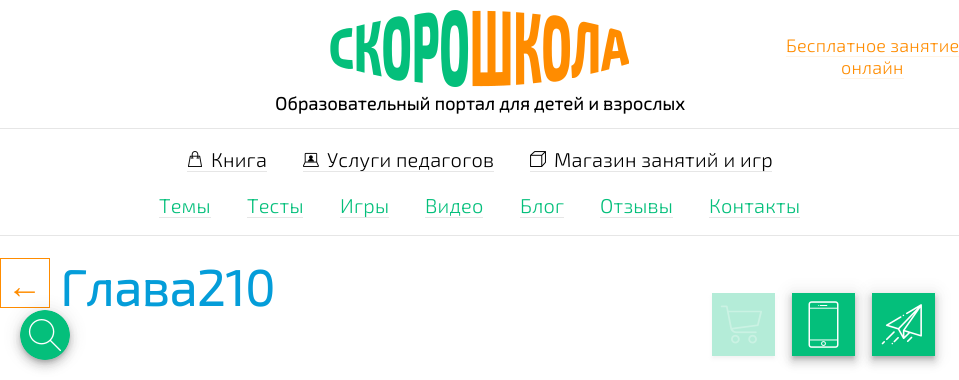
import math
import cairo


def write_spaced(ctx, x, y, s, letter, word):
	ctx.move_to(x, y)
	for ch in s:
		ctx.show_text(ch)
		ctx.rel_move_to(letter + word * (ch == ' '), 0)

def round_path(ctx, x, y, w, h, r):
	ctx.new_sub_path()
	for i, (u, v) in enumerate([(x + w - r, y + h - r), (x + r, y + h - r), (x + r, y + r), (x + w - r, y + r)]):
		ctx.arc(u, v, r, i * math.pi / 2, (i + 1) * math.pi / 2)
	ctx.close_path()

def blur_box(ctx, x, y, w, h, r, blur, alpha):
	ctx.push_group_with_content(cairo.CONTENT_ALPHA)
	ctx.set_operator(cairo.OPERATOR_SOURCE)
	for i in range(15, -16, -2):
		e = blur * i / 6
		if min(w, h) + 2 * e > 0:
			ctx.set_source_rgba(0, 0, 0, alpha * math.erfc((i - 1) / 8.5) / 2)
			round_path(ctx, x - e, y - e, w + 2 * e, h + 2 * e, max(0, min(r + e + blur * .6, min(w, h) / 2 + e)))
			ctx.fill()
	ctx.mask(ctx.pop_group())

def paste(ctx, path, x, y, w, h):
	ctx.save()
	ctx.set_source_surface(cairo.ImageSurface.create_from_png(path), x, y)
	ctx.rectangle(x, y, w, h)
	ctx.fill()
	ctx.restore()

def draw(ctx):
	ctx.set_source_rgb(1, 1, 1)
	ctx.paint()
	ctx.select_font_face('Exo 2 Light')
	ctx.set_font_size(18)
	ctx.set_source_rgb(1, 0.549, 0)
	write_spaced(ctx, 786, 52, 'Бесплатное занятие', 0.2, 0)
	ctx.set_source_rgb(1, 0.957, 0.902)
	ctx.rectangle(786, 56, 173, 1)
	ctx.fill()
	ctx.set_source_rgb(1, 0.549, 0)
	write_spaced(ctx, 841, 74, 'онлайн', 0.2, 0)
	ctx.set_source_rgb(1, 0.957, 0.902)
	ctx.rectangle(841, 78, 63, 1)
	ctx.fill()
	paste(ctx, 'media/1.png', 330, 10, 299, 77)
	ctx.select_font_face('Exo 2', cairo.FONT_SLANT_NORMAL, cairo.FONT_WEIGHT_BOLD)
	ctx.set_source_rgb(0, 0, 0)
	write_spaced(ctx, 275, 110, 'Образовательный портал для детей и взрослых', 0.2, 0)
	ctx.set_source_rgb(0.902, 0.902, 0.902)
	ctx.rectangle(0, 128, 959, 1)
	ctx.fill()
	ctx.rectangle(0, 235, 959, 1)
	ctx.fill()
	paste(ctx, 'media/2.png', 188, 151, 14, 16)
	ctx.select_font_face('Exo 2 Light')
	ctx.set_font_size(20)
	ctx.set_source_rgb(0, 0, 0)
	write_spaced(ctx, 211, 167, 'Книга', 0.2, 0)
	ctx.set_source_rgb(0.902, 0.902, 0.902)
	ctx.rectangle(187, 171, 80, 1)
	ctx.fill()
	paste(ctx, 'media/3.png', 303, 152, 16, 15)
	ctx.rectangle(303, 171, 191, 1)
	ctx.fill()
	ctx.set_source_rgb(0, 0, 0)
	write_spaced(ctx, 327, 167, 'Услуги педагогов', 0.2, 0)
	paste(ctx, 'media/4.png', 530, 151, 16, 16)
	ctx.set_source_rgb(0.902, 0.902, 0.902)
	ctx.rectangle(530, 171, 242, 1)
	ctx.fill()
	ctx.set_source_rgb(0, 0, 0)
	write_spaced(ctx, 554, 167, 'Магазин занятий и игр', 0.2, 0)
	ctx.set_source_rgb(0.016, 0.749, 0.482)
	write_spaced(ctx, 159, 213, 'Темы', 0.2, 0)
	ctx.set_source_rgb(0.902, 0.902, 0.902)
	ctx.rectangle(159, 217, 52, 1)
	ctx.fill()
	ctx.set_source_rgb(0.016, 0.749, 0.482)
	write_spaced(ctx, 247, 213, 'Тесты', 0.2, 0)
	ctx.set_source_rgb(0.902, 0.902, 0.902)
	ctx.rectangle(247, 217, 56, 1)
	ctx.fill()
	ctx.rectangle(340, 217, 49, 1)
	ctx.fill()
	ctx.set_source_rgb(0.016, 0.749, 0.482)
	write_spaced(ctx, 340, 213, 'Игры', 0.2, 0)
	write_spaced(ctx, 425, 213, 'Видео', 0.2, 0)
	ctx.set_source_rgb(0.902, 0.902, 0.902)
	ctx.rectangle(425, 217, 58, 1)
	ctx.fill()
	ctx.set_source_rgb(0.016, 0.749, 0.482)
	write_spaced(ctx, 520, 213, 'Блог', 0.2, 0)
	ctx.set_source_rgb(0.902, 0.902, 0.902)
	ctx.rectangle(520, 217, 44, 1)
	ctx.fill()
	ctx.set_source_rgb(0.016, 0.749, 0.482)
	write_spaced(ctx, 600, 213, 'Отзывы', 0.2, 0)
	ctx.set_source_rgb(0.902, 0.902, 0.902)
	ctx.rectangle(600, 217, 73, 1)
	ctx.fill()
	ctx.set_source_rgb(0.016, 0.749, 0.482)
	write_spaced(ctx, 709, 213, 'Контакты', 0.2, 0)
	ctx.set_source_rgb(0.902, 0.902, 0.902)
	ctx.rectangle(709, 217, 91, 1)
	ctx.fill()
	ctx.rectangle(0.5, 258.5, 49, 49)
	ctx.set_source_rgb(1, 0.549, 0)
	ctx.set_line_width(1)
	ctx.stroke()
	ctx.select_font_face('Liberation Sans')
	ctx.set_font_size(35)
	write_spaced(ctx, 7, 298, '←', 0.2, 0)
	ctx.select_font_face('Exo 2', cairo.FONT_SLANT_NORMAL, cairo.FONT_WEIGHT_BOLD)
	ctx.set_font_size(50)
	ctx.set_source_rgb(0.016, 0.616, 0.851)
	write_spaced(ctx, 60, 306, 'Глава210', 0.2, 0)
	ctx.set_source_rgb(0, 0, 0)
	blur_box(ctx, 872, 294, 63, 63, 0, 9, 0.12)
	blur_box(ctx, 872, 299, 63, 63, 0, 5, 0.14)
	blur_box(ctx, 873, 297, 61, 61, 0, 2.5, 0.2)
	paste(ctx, 'media/6.png', 872, 293, 63, 63)
	blur_box(ctx, 792, 294, 63, 63, 0, 9, 0.12)
	blur_box(ctx, 792, 299, 63, 63, 0, 5, 0.14)
	blur_box(ctx, 793, 297, 61, 61, 0, 2.5, 0.2)
	paste(ctx, 'media/5.png', 792, 293, 63, 63)
	blur_box(ctx, 20, 311, 50, 50, 25, 9, 0.12)
	blur_box(ctx, 20, 316, 50, 50, 25, 5, 0.14)
	blur_box(ctx, 21, 314, 48, 48, 24, 2.5, 0.2)
	paste(ctx, 'media/7.png', 20, 310, 50, 50)
	ctx.save()
	ctx.set_fill_rule(cairo.FILL_RULE_EVEN_ODD)
	ctx.new_path()
	ctx.move_to(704, 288)
	ctx.line_to(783, 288)
	ctx.line_to(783, 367)
	ctx.line_to(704, 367)
	ctx.close_path()
	ctx.move_to(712, 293)
	ctx.line_to(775, 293)
	ctx.line_to(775, 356)
	ctx.line_to(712, 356)
	ctx.close_path()
	ctx.clip()
	ctx.set_source_rgb(0.698, 0.698, 0.698)
	blur_box(ctx, 713, 297, 61, 61, 0, 2.5, 0.2)
	ctx.restore()
	paste(ctx, 'media/8.png', 712, 293, 63, 63)


surface = cairo.ImageSurface(cairo.FORMAT_RGB24, 959, 380)
ctx = cairo.Context(surface)
options = cairo.FontOptions()
options.set_hint_metrics(cairo.HINT_METRICS_OFF)
options.set_hint_style(cairo.HINT_STYLE_NONE)
ctx.set_font_options(options)
ctx.set_miter_limit(4)
draw(ctx)
surface.write_to_png('image.png')
